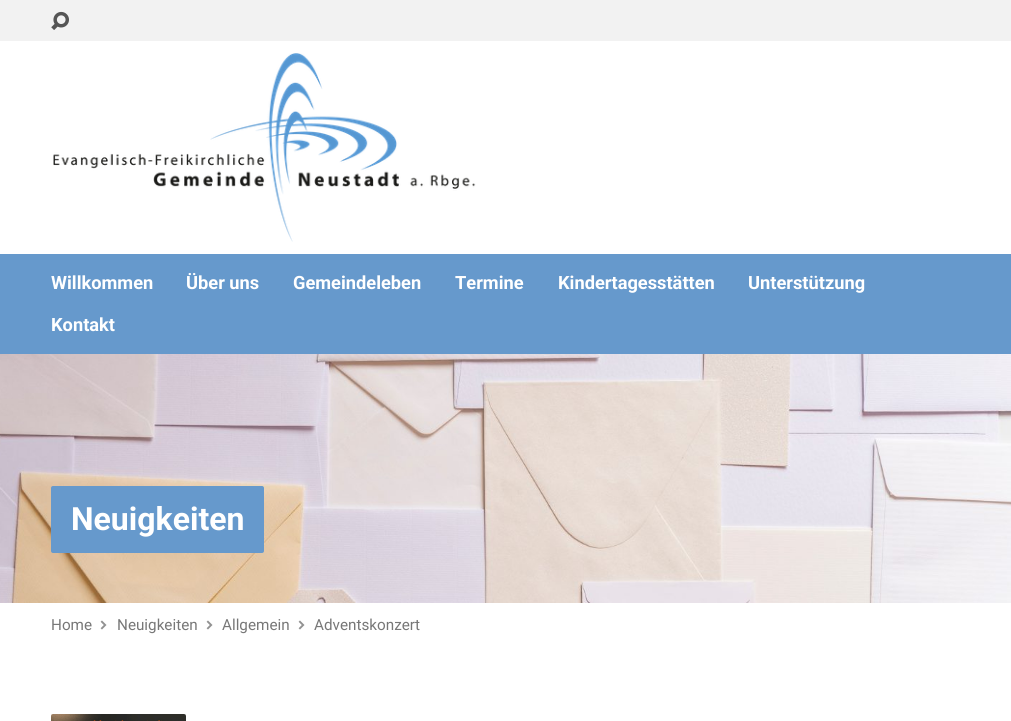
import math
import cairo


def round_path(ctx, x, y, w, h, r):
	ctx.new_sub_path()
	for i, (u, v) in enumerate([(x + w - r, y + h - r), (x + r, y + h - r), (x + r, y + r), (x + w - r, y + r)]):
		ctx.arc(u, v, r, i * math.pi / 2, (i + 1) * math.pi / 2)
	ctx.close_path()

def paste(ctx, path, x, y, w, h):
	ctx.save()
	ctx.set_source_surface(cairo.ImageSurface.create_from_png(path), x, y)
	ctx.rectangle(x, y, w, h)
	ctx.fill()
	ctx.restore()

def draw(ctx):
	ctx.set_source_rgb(1, 1, 1)
	ctx.paint()
	ctx.set_source_rgb(0.949, 0.949, 0.949)
	ctx.rectangle(0, 0, 1011, 41)
	ctx.fill()
	paste(ctx, 'media/1.png', 51, 11, 18, 19)
	paste(ctx, 'media/2.png', 53, 53, 423, 189)
	ctx.set_source_rgb(0.4, 0.6, 0.8)
	ctx.rectangle(0, 254, 1011, 100)
	ctx.fill()
	ctx.select_font_face('Roboto', cairo.FONT_SLANT_NORMAL, cairo.FONT_WEIGHT_BOLD)
	ctx.set_font_size(18.25)
	ctx.set_source_rgb(1, 1, 1)
	for x, y, s in [
		(51, 289, 'Willkommen'),
		(186, 289, 'Über uns'),
		(293, 289, 'Gemeindeleben'),
		(455, 289, 'Termine'),
		(558, 289, 'Kindertagesstätten'),
		(748, 289, 'Unterstützung'),
		(51, 331, 'Kontakt'),
	]:
		ctx.move_to(x, y)
		ctx.show_text(s)
	paste(ctx, 'media/3.png', 0, 354, 1011, 249)
	ctx.set_source_rgb(0.4, 0.6, 0.8)
	round_path(ctx, 51, 486, 213, 67, 2)
	ctx.fill()
	ctx.set_font_size(32)
	ctx.set_source_rgb(1, 1, 1)
	ctx.move_to(71, 530)
	ctx.show_text('Neuigkeiten')
	ctx.select_font_face('Roboto')
	ctx.set_font_size(15.25)
	ctx.set_source_rgb(0.467, 0.467, 0.467)
	ctx.move_to(51, 630)
	ctx.show_text('Home')
	paste(ctx, 'media/4.png', 100, 620, 7, 10)
	ctx.move_to(117, 630)
	ctx.show_text('Neuigkeiten')
	paste(ctx, 'media/4.png', 206, 620, 7, 10)
	ctx.move_to(222, 630)
	ctx.show_text('Allgemein')
	paste(ctx, 'media/4.png', 298, 620, 7, 10)
	ctx.move_to(314, 630)
	ctx.show_text('Adventskonzert')
	paste(ctx, 'media/5.png', 51, 714, 135, 7)


surface = cairo.ImageSurface(cairo.FORMAT_RGB24, 1011, 721)
ctx = cairo.Context(surface)
options = cairo.FontOptions()
options.set_hint_metrics(cairo.HINT_METRICS_OFF)
options.set_hint_style(cairo.HINT_STYLE_NONE)
ctx.set_font_options(options)
ctx.set_miter_limit(4)
draw(ctx)
surface.write_to_png('image.png')
